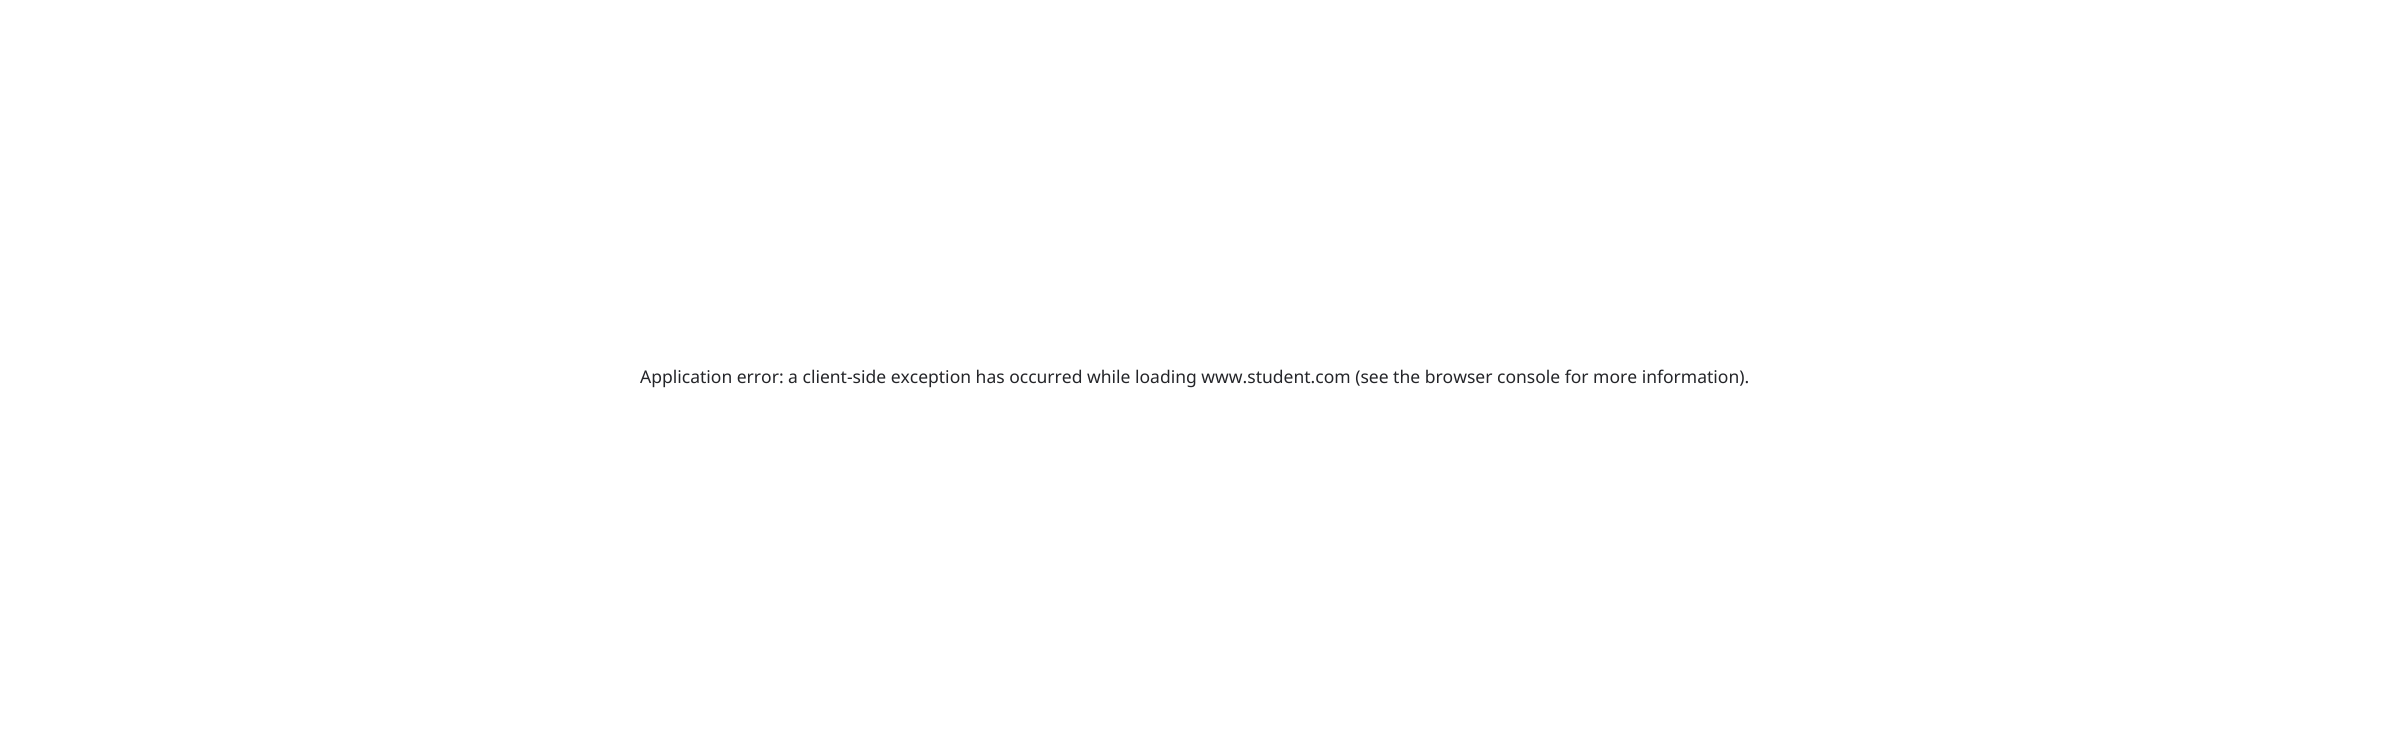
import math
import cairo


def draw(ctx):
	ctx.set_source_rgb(1, 1, 1)
	ctx.paint()
	ctx.select_font_face('Noto Sans')
	ctx.set_font_size(17.5)
	ctx.set_source_rgb(0.141, 0.145, 0.161)
	ctx.move_to(640, 383)
	ctx.show_text('Application error: a client-side exception has occurred while loading www.student.com (see the browser console for more information).')


surface = cairo.ImageSurface(cairo.FORMAT_RGB24, 2388, 752)
ctx = cairo.Context(surface)
options = cairo.FontOptions()
options.set_hint_metrics(cairo.HINT_METRICS_OFF)
options.set_hint_style(cairo.HINT_STYLE_NONE)
ctx.set_font_options(options)
ctx.set_miter_limit(4)
draw(ctx)
surface.write_to_png('image.png')
